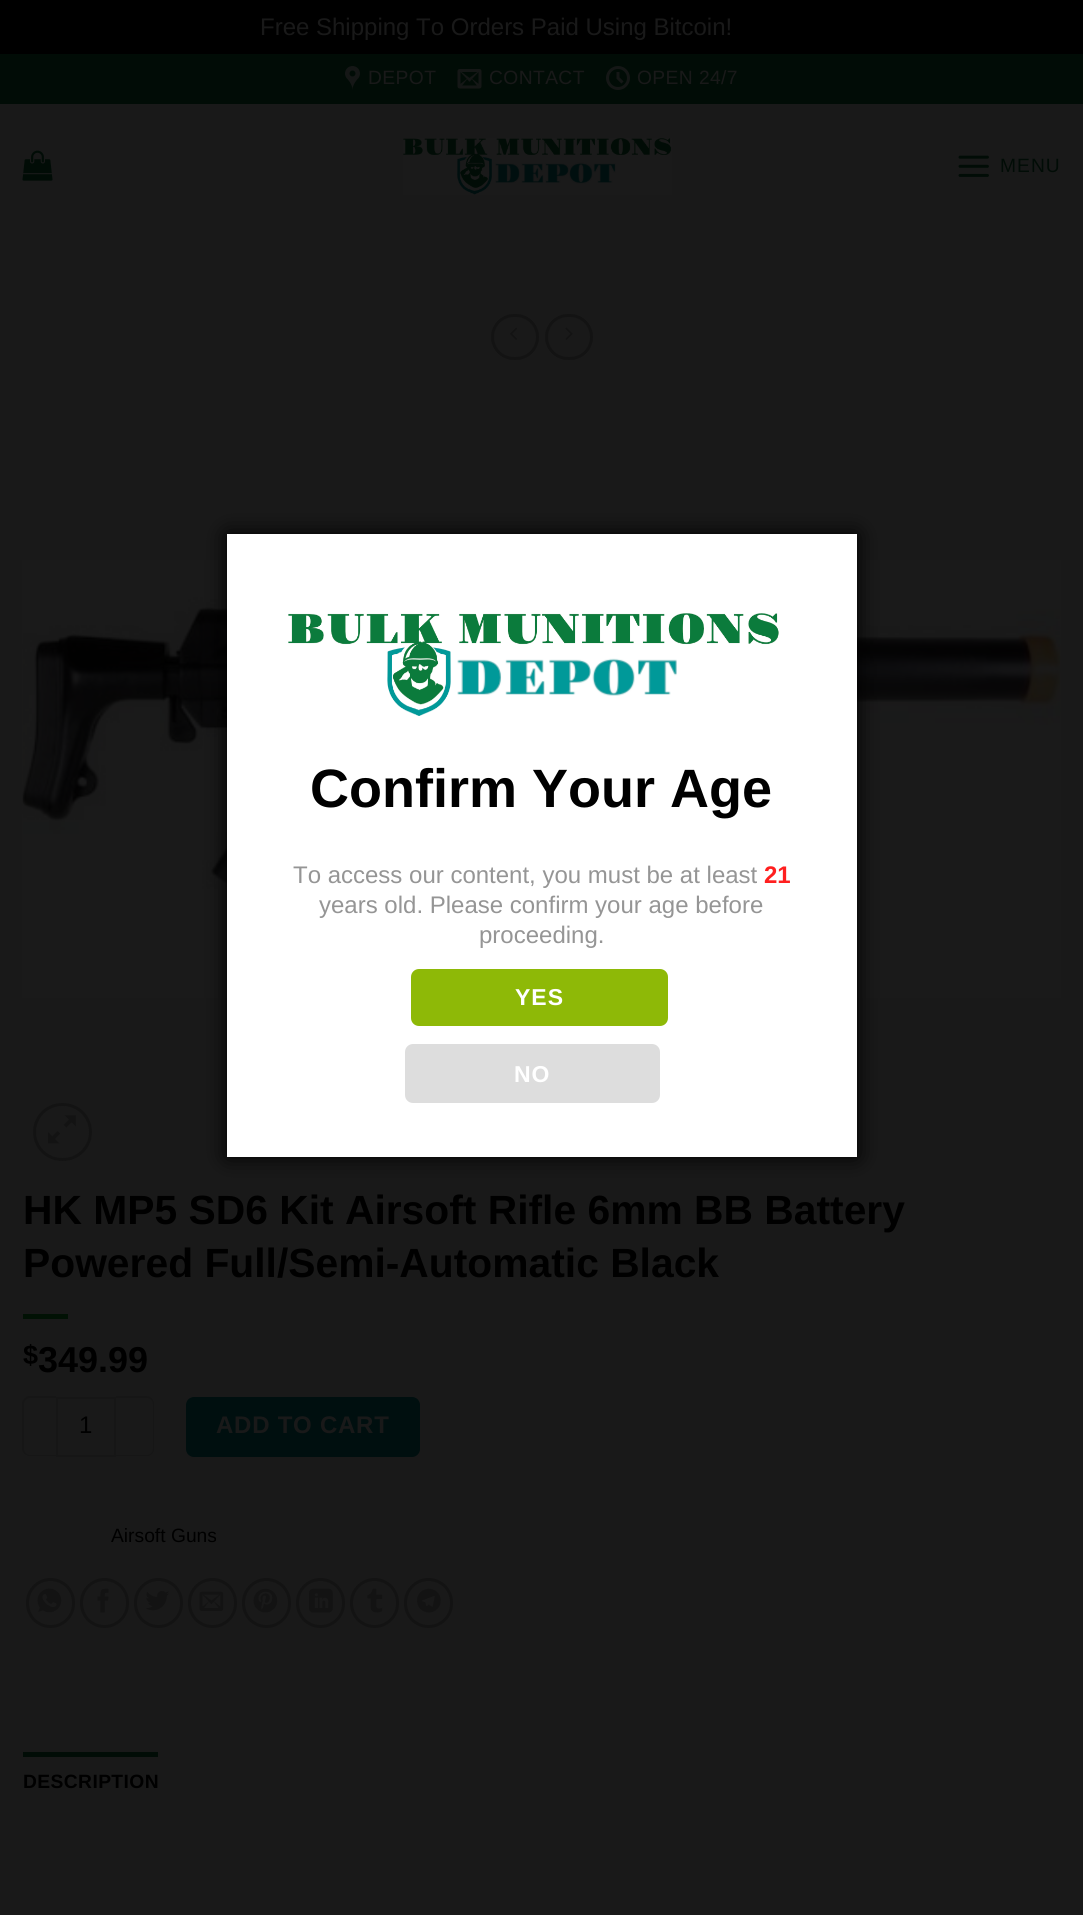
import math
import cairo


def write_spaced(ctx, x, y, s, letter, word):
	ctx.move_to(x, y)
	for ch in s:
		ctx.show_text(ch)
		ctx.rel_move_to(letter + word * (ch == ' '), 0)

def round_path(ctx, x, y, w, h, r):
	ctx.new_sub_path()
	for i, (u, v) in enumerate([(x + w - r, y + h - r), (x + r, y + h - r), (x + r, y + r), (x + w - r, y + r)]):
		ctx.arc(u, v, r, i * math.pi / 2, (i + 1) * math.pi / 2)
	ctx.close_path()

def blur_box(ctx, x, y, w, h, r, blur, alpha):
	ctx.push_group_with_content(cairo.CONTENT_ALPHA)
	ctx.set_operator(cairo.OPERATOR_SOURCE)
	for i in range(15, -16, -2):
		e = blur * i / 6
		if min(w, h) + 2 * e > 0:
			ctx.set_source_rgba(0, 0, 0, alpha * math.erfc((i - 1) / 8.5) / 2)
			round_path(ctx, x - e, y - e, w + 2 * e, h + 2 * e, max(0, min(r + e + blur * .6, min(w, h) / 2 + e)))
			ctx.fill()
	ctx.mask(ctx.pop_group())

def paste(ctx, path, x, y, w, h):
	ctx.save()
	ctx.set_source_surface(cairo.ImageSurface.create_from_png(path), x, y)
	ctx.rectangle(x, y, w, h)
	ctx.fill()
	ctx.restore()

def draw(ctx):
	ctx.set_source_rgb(0, 0, 0)
	ctx.paint()
	ctx.select_font_face('Liberation Sans')
	ctx.set_font_size(24)
	ctx.set_source_rgb(0.098, 0.098, 0.098)
	ctx.move_to(260, 35)
	ctx.show_text('Free Shipping To Orders Paid Using Bitcoin!')
	ctx.rectangle(0, 104, 1083, 1811)
	ctx.fill()
	ctx.set_source_rgb(0.004, 0.047, 0.024)
	ctx.rectangle(0, 54, 1083, 50)
	ctx.fill()
	paste(ctx, 'media/1.png', 345, 66, 15, 24)
	ctx.set_font_size(19.25)
	ctx.set_source_rgb(0.098, 0.098, 0.098)
	write_spaced(ctx, 368, 84, 'DEPOT', 0.4, 0)
	paste(ctx, 'media/2.png', 457, 69, 25, 20)
	write_spaced(ctx, 489, 84, 'CONTACT', 0.4, 0)
	paste(ctx, 'media/3.png', 606, 66, 24, 24)
	write_spaced(ctx, 637, 84, 'OPEN 24/7', 0.4, 0)
	paste(ctx, 'media/4.png', 22, 150, 31, 31)
	paste(ctx, 'media/5.png', 403, 138, 269, 57)
	paste(ctx, 'media/6.png', 958, 155, 31, 22)
	ctx.set_source_rgb(0.004, 0.047, 0.024)
	write_spaced(ctx, 1000, 172, 'MENU', 1, 0)
	round_path(ctx, 492.5, 315.5, 45, 43, 21.5)
	ctx.set_source_rgb(0.075, 0.075, 0.075)
	ctx.set_line_width(3)
	ctx.stroke()
	paste(ctx, 'media/7.png', 510, 327, 8, 13)
	round_path(ctx, 546.5, 315.5, 45, 43, 21.5)
	ctx.stroke()
	paste(ctx, 'media/8.png', 565, 327, 8, 13)
	paste(ctx, 'media/9.png', 22, 560, 1039, 438)
	round_path(ctx, 34.5, 1104.5, 56, 55, 27.5)
	ctx.stroke()
	paste(ctx, 'media/10.png', 48, 1115, 28, 29)
	ctx.select_font_face('Liberation Sans', cairo.FONT_SLANT_NORMAL, cairo.FONT_WEIGHT_BOLD)
	ctx.set_font_size(40.8)
	ctx.set_source_rgb(0, 0, 0)
	ctx.move_to(23, 1224)
	ctx.show_text('HK MP5 SD6 Kit Airsoft Rifle 6mm BB Battery')
	ctx.move_to(23, 1277)
	ctx.show_text('Powered Full/Semi-Automatic Black')
	ctx.set_source_rgb(0.004, 0.067, 0.016)
	ctx.rectangle(23, 1314, 45, 5)
	ctx.fill()
	ctx.set_font_size(27)
	ctx.set_source_rgb(0, 0, 0)
	ctx.move_to(23, 1364)
	ctx.show_text('$')
	ctx.set_font_size(36)
	ctx.move_to(38, 1372)
	ctx.show_text('349.99')
	ctx.set_source_rgb(0.086, 0.086, 0.086)
	ctx.set_fill_rule(cairo.FILL_RULE_EVEN_ODD)
	ctx.new_path()
	ctx.move_to(30, 1396)
	ctx.line_to(56, 1396)
	ctx.line_to(56, 1456)
	ctx.line_to(30, 1456)
	ctx.curve_to(26, 1456, 22, 1453, 22, 1449)
	ctx.line_to(22, 1404)
	ctx.curve_to(22, 1400, 26, 1396, 30, 1396)
	ctx.close_path()
	ctx.move_to(30, 1398)
	ctx.line_to(56, 1398)
	ctx.line_to(56, 1455)
	ctx.line_to(30, 1455)
	ctx.curve_to(27, 1455, 24, 1452, 24, 1449)
	ctx.line_to(24, 1404)
	ctx.curve_to(24, 1401, 27, 1398, 30, 1398)
	ctx.close_path()
	ctx.fill()
	ctx.rectangle(57, 1398, 58, 58)
	ctx.set_line_width(2)
	ctx.stroke()
	ctx.select_font_face('Liberation Sans')
	ctx.set_font_size(24)
	ctx.set_source_rgb(0, 0, 0)
	ctx.move_to(79, 1433)
	ctx.show_text('1')
	ctx.set_source_rgb(0.086, 0.086, 0.086)
	ctx.new_path()
	ctx.move_to(116, 1396)
	ctx.line_to(147, 1396)
	ctx.curve_to(151, 1396, 154, 1400, 154, 1404)
	ctx.line_to(154, 1449)
	ctx.curve_to(154, 1453, 151, 1456, 147, 1456)
	ctx.line_to(116, 1456)
	ctx.close_path()
	ctx.move_to(116, 1398)
	ctx.line_to(147, 1398)
	ctx.curve_to(150, 1398, 153, 1401, 153, 1404)
	ctx.line_to(153, 1449)
	ctx.curve_to(153, 1452, 150, 1455, 147, 1455)
	ctx.line_to(116, 1455)
	ctx.close_path()
	ctx.fill()
	ctx.set_source_rgb(0, 0.059, 0.059)
	round_path(ctx, 186, 1397, 234, 60, 8)
	ctx.fill()
	ctx.select_font_face('Liberation Sans', cairo.FONT_SLANT_NORMAL, cairo.FONT_WEIGHT_BOLD)
	ctx.set_source_rgb(0.098, 0.098, 0.098)
	write_spaced(ctx, 216, 1433, 'ADD TO CART', 0.75, 0)
	ctx.select_font_face('Liberation Sans')
	ctx.set_font_size(19.25)
	ctx.set_source_rgb(0, 0, 0)
	ctx.move_to(111, 1542)
	ctx.show_text('Airsoft Guns')
	round_path(ctx, 27.5, 1579.5, 46, 47, 23)
	ctx.set_source_rgb(0.075, 0.075, 0.075)
	ctx.set_line_width(3)
	ctx.stroke()
	paste(ctx, 'media/11.png', 37, 1588, 25, 25)
	round_path(ctx, 81.5, 1579.5, 46, 47, 23)
	ctx.stroke()
	paste(ctx, 'media/12.png', 97, 1588, 12, 25)
	round_path(ctx, 135.5, 1579.5, 46, 47, 23)
	ctx.stroke()
	paste(ctx, 'media/13.png', 146, 1591, 23, 20)
	round_path(ctx, 189.5, 1579.5, 46, 47, 23)
	ctx.stroke()
	paste(ctx, 'media/14.png', 199, 1591, 25, 20)
	round_path(ctx, 243.5, 1579.5, 46, 47, 23)
	ctx.stroke()
	paste(ctx, 'media/15.png', 253, 1588, 25, 25)
	round_path(ctx, 297.5, 1579.5, 46, 47, 23)
	ctx.stroke()
	paste(ctx, 'media/16.png', 309, 1588, 24, 25)
	round_path(ctx, 351.5, 1579.5, 46, 47, 23)
	ctx.stroke()
	paste(ctx, 'media/17.png', 367, 1588, 16, 25)
	round_path(ctx, 405.5, 1579.5, 46, 47, 23)
	ctx.stroke()
	paste(ctx, 'media/18.png', 417, 1588, 24, 25)
	ctx.set_source_rgb(0.004, 0.047, 0.024)
	ctx.rectangle(23, 1752, 135, 5)
	ctx.fill()
	ctx.select_font_face('Liberation Sans', cairo.FONT_SLANT_NORMAL, cairo.FONT_WEIGHT_BOLD)
	ctx.set_source_rgb(0, 0, 0)
	write_spaced(ctx, 23, 1788, 'DESCRIPTION', 0.4, 0)
	ctx.set_source_rgb(0, 0, 0)
	blur_box(ctx, 227, 534, 630, 623, 0, 11, 1)
	ctx.set_source_rgb(1, 1, 1)
	ctx.rectangle(227, 534, 630, 623)
	ctx.fill()
	paste(ctx, 'media/19.png', 288, 613, 491, 103)
	ctx.set_font_size(54)
	ctx.set_source_rgb(0, 0, 0)
	ctx.move_to(310, 807)
	ctx.show_text('Confirm Your Age')
	ctx.select_font_face('Liberation Sans')
	ctx.set_font_size(24)
	ctx.set_source_rgb(0.584, 0.584, 0.584)
	ctx.move_to(293, 883)
	ctx.show_text('To access our content, you must be at least')
	ctx.select_font_face('Liberation Sans', cairo.FONT_SLANT_NORMAL, cairo.FONT_WEIGHT_BOLD)
	ctx.set_source_rgb(1, 0.122, 0.122)
	ctx.move_to(764, 883)
	ctx.show_text('21')
	ctx.select_font_face('Liberation Sans')
	ctx.set_source_rgb(0.584, 0.584, 0.584)
	ctx.move_to(319, 913)
	ctx.show_text('years old. Please confirm your age before')
	ctx.move_to(479, 943)
	ctx.show_text('proceeding.')
	ctx.set_source_rgb(0.557, 0.725, 0.031)
	round_path(ctx, 411, 969, 257, 57, 8)
	ctx.fill()
	ctx.select_font_face('Liberation Sans', cairo.FONT_SLANT_NORMAL, cairo.FONT_WEIGHT_BOLD)
	ctx.set_font_size(23)
	ctx.set_source_rgb(1, 1, 1)
	write_spaced(ctx, 515, 1005, 'YES', 1, 0)
	ctx.set_source_rgb(0.867, 0.867, 0.867)
	round_path(ctx, 405, 1044, 255, 59, 8)
	ctx.fill()
	ctx.set_source_rgb(1, 1, 1)
	write_spaced(ctx, 514, 1082, 'NO', 1, 0)


surface = cairo.ImageSurface(cairo.FORMAT_RGB24, 1083, 1915)
ctx = cairo.Context(surface)
options = cairo.FontOptions()
options.set_hint_metrics(cairo.HINT_METRICS_OFF)
options.set_hint_style(cairo.HINT_STYLE_NONE)
ctx.set_font_options(options)
ctx.set_miter_limit(4)
draw(ctx)
surface.write_to_png('image.png')
